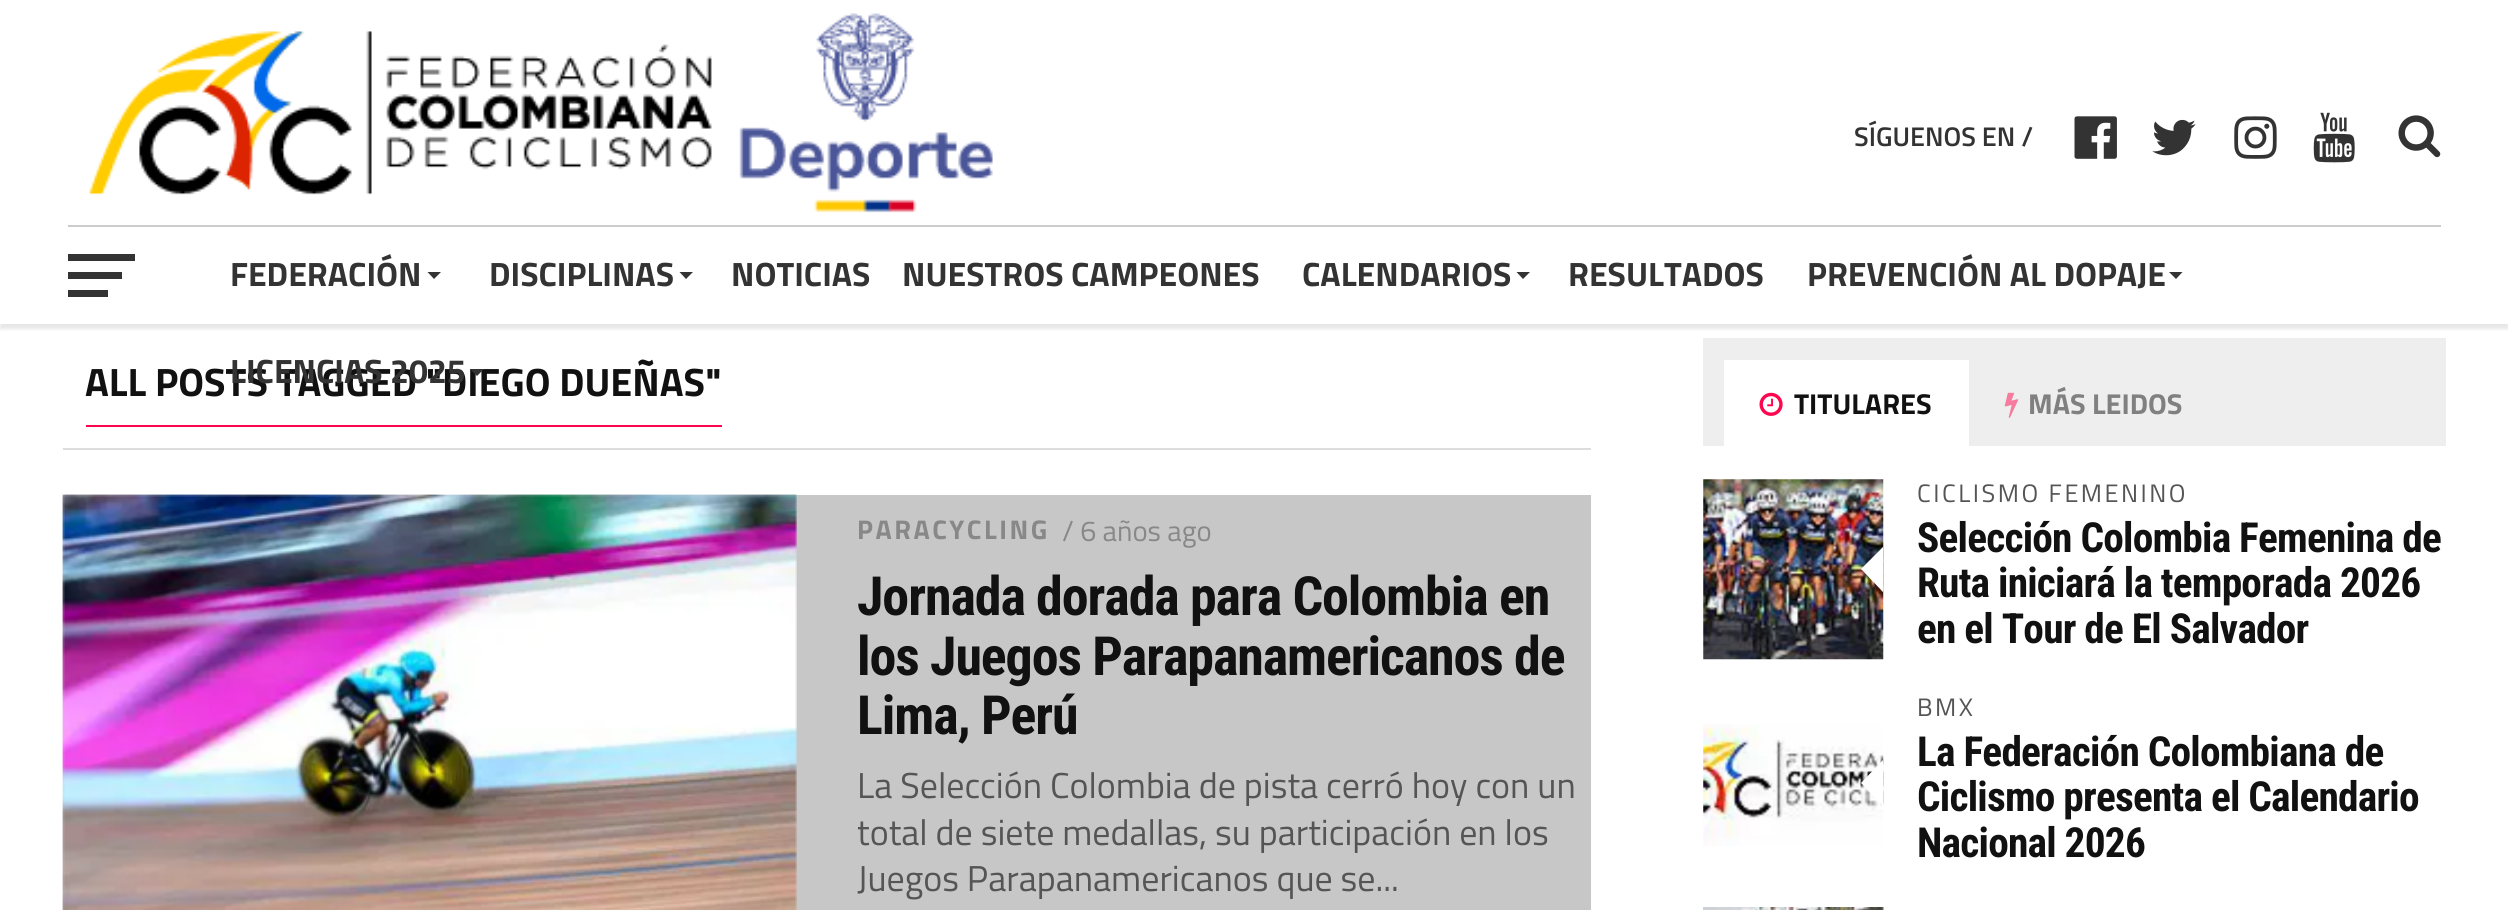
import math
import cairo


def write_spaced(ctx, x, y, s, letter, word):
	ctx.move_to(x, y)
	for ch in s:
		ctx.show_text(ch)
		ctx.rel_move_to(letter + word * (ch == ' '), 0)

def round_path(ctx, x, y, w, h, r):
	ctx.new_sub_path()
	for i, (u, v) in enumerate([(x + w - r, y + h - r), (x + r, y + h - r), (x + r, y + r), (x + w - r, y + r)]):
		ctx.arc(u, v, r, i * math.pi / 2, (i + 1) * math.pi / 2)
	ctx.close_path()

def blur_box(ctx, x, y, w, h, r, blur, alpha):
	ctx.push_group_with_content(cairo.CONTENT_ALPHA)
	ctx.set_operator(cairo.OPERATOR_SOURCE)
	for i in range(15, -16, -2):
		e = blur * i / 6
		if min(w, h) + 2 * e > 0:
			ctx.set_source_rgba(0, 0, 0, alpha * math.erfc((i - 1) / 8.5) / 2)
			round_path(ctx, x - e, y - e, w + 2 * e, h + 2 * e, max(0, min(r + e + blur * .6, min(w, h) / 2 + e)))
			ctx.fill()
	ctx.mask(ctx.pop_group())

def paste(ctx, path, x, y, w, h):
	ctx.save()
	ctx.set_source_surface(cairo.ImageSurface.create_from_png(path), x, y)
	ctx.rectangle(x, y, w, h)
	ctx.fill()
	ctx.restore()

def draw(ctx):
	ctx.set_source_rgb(1, 1, 1)
	ctx.paint()
	ctx.save()
	ctx.rectangle(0, 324, 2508, 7)
	ctx.clip()
	ctx.set_source_rgb(0, 0, 0)
	blur_box(ctx, 0, 5, 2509, 324, 0, 2, 0.1)
	ctx.restore()
	ctx.set_source_rgb(0.8, 0.8, 0.8)
	ctx.rectangle(68, 225, 2373, 2)
	ctx.fill()
	paste(ctx, 'media/1.png', 89, 13, 904, 200)
	ctx.select_font_face('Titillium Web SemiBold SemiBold')
	ctx.set_font_size(27)
	ctx.set_source_rgb(0.2, 0.2, 0.2)
	ctx.move_to(1854, 146)
	ctx.show_text('SÍGUENOS EN /')
	paste(ctx, 'media/2.png', 2074, 116, 43, 43)
	paste(ctx, 'media/3.png', 2152, 119, 44, 37)
	paste(ctx, 'media/4.png', 2234, 116, 43, 43)
	paste(ctx, 'media/5.png', 2313, 112, 42, 51)
	paste(ctx, 'media/6.png', 2398, 115, 43, 43)
	ctx.rectangle(68, 254, 67, 7)
	ctx.rectangle(68, 272, 54, 7)
	ctx.rectangle(68, 290, 40, 7)
	ctx.fill()
	ctx.select_font_face('Titillium Web', cairo.FONT_SLANT_NORMAL, cairo.FONT_WEIGHT_BOLD)
	ctx.set_font_size(33.75)
	ctx.move_to(230, 286)
	ctx.show_text('FEDERACIÓN')
	ctx.new_path()
	ctx.move_to(427.5, 272)
	ctx.line_to(441, 272)
	ctx.line_to(434, 279)
	ctx.close_path()
	ctx.fill()
	ctx.move_to(489, 286)
	ctx.show_text('DISCIPLINAS')
	ctx.new_path()
	ctx.move_to(679.5, 272)
	ctx.line_to(693, 272)
	ctx.line_to(686, 279)
	ctx.close_path()
	ctx.fill()
	for x, y, s in [
		(731, 286, 'NOTICIAS'),
		(902, 286, 'NUESTROS CAMPEONES'),
		(1302, 286, 'CALENDARIOS'),
	]:
		ctx.move_to(x, y)
		ctx.show_text(s)
	ctx.new_path()
	ctx.move_to(1516.5, 272)
	ctx.line_to(1530, 272)
	ctx.line_to(1523, 279)
	ctx.close_path()
	ctx.fill()
	ctx.move_to(1568, 286)
	ctx.show_text('RESULTADOS')
	ctx.move_to(1807, 286)
	ctx.show_text('PREVENCIÓN AL DOPAJE')
	ctx.new_path()
	ctx.move_to(2169, 272)
	ctx.line_to(2182.5, 272)
	ctx.line_to(2176, 279)
	ctx.close_path()
	ctx.fill()
	ctx.set_font_size(39.6)
	ctx.set_source_rgb(0.067, 0.067, 0.067)
	ctx.move_to(85, 396)
	ctx.show_text('ALL POSTS TAGGED "DIEGO DUEÑAS"')
	ctx.set_font_size(33.75)
	ctx.set_source_rgb(0.2, 0.2, 0.2)
	ctx.move_to(230, 383)
	ctx.show_text('LICENCIAS 2025')
	ctx.new_path()
	ctx.move_to(470, 369)
	ctx.line_to(484, 369)
	ctx.line_to(477, 376)
	ctx.close_path()
	ctx.fill()
	ctx.set_source_rgb(0.867, 0.867, 0.867)
	ctx.rectangle(63, 448, 1528, 2)
	ctx.fill()
	ctx.set_source_rgb(0.996, 0.027, 0.306)
	ctx.rectangle(86, 425, 636, 2)
	ctx.fill()
	ctx.set_source_rgb(0.78, 0.78, 0.78)
	ctx.rectangle(63, 495, 1528, 415)
	ctx.fill()
	paste(ctx, 'media/7.png', 62, 494, 735, 416)
	ctx.set_font_size(27)
	ctx.set_source_rgb(0.533, 0.533, 0.533)
	write_spaced(ctx, 857, 539, 'PARACYCLING', 2.5, 0)
	ctx.select_font_face('Titillium Web')
	ctx.set_font_size(28.75)
	ctx.move_to(1062, 541)
	ctx.show_text('/ 6 años ago')
	ctx.select_font_face('Roboto Condensed', cairo.FONT_SLANT_NORMAL, cairo.FONT_WEIGHT_BOLD)
	ctx.set_font_size(54)
	ctx.set_source_rgb(0.067, 0.067, 0.067)
	for x, y, s in [
		(857, 615, 'Jornada dorada para Colombia en'),
		(857, 675, 'los Juegos Parapanamericanos de'),
		(857, 734, 'Lima, Perú'),
	]:
		write_spaced(ctx, x, y, s, -1.1, 0)
	ctx.select_font_face('Titillium Web')
	ctx.set_font_size(36)
	ctx.set_source_rgb(0.333, 0.333, 0.333)
	for x, y, s in [
		(857, 798, 'La Selección Colombia de pista cerró hoy con un'),
		(857, 845, 'total de siete medallas, su participación en los'),
		(857, 891, 'Juegos Parapanamericanos que se...'),
	]:
		ctx.move_to(x, y)
		ctx.show_text(s)
	ctx.set_source_rgb(0.933, 0.933, 0.933)
	ctx.rectangle(1703, 338, 743, 108)
	ctx.fill()
	ctx.set_source_rgb(1, 1, 1)
	ctx.rectangle(1724, 360, 245, 86)
	ctx.fill()
	paste(ctx, 'media/8.png', 1759, 392, 24, 24)
	ctx.select_font_face('Titillium Web', cairo.FONT_SLANT_NORMAL, cairo.FONT_WEIGHT_BOLD)
	ctx.set_font_size(28.75)
	ctx.set_source_rgb(0.067, 0.067, 0.067)
	ctx.move_to(1794, 414)
	ctx.show_text('TITULARES')
	paste(ctx, 'media/9.png', 2004, 392, 15, 26)
	ctx.set_source_rgb(0.502, 0.502, 0.502)
	ctx.move_to(2028, 414)
	ctx.show_text('MÁS LEIDOS')
	paste(ctx, 'media/10.png', 1703, 479, 181, 181)
	ctx.set_source_rgb(1, 1, 1)
	ctx.new_path()
	ctx.move_to(1883, 547)
	ctx.line_to(1883, 592)
	ctx.line_to(1861, 569)
	ctx.close_path()
	ctx.fill()
	ctx.select_font_face('Titillium Web')
	ctx.set_font_size(25.25)
	ctx.set_source_rgb(0.333, 0.333, 0.333)
	write_spaced(ctx, 1917, 502, 'CICLISMO FEMENINO', 2.5, 0)
	ctx.select_font_face('Roboto Condensed', cairo.FONT_SLANT_NORMAL, cairo.FONT_WEIGHT_BOLD)
	ctx.set_font_size(41.4)
	ctx.set_source_rgb(0.067, 0.067, 0.067)
	for x, y, s in [
		(1917, 552, 'Selección Colombia Femenina de'),
		(1917, 597, 'Ruta iniciará la temporada 2026'),
		(1917, 643, 'en el Tour de El Salvador'),
	]:
		write_spaced(ctx, x, y, s, -0.8, 0)
	paste(ctx, 'media/11.png', 1703, 724, 181, 122)
	ctx.set_source_rgb(1, 1, 1)
	ctx.new_path()
	ctx.move_to(1883, 760)
	ctx.line_to(1883, 806)
	ctx.line_to(1861, 783)
	ctx.close_path()
	ctx.fill()
	ctx.select_font_face('Titillium Web')
	ctx.set_font_size(25.25)
	ctx.set_source_rgb(0.333, 0.333, 0.333)
	write_spaced(ctx, 1917, 716, 'BMX', 2.5, 0)
	ctx.select_font_face('Roboto Condensed', cairo.FONT_SLANT_NORMAL, cairo.FONT_WEIGHT_BOLD)
	ctx.set_font_size(41.4)
	ctx.set_source_rgb(0.067, 0.067, 0.067)
	for x, y, s in [
		(1917, 766, 'La Federación Colombiana de'),
		(1917, 811, 'Ciclismo presenta el Calendario'),
		(1917, 857, 'Nacional 2026'),
	]:
		write_spaced(ctx, x, y, s, -0.8, 0)
	paste(ctx, 'media/12.png', 1703, 907, 181, 3)


surface = cairo.ImageSurface(cairo.FORMAT_RGB24, 2508, 910)
ctx = cairo.Context(surface)
options = cairo.FontOptions()
options.set_hint_metrics(cairo.HINT_METRICS_OFF)
options.set_hint_style(cairo.HINT_STYLE_NONE)
ctx.set_font_options(options)
ctx.set_miter_limit(4)
draw(ctx)
surface.write_to_png('image.png')
